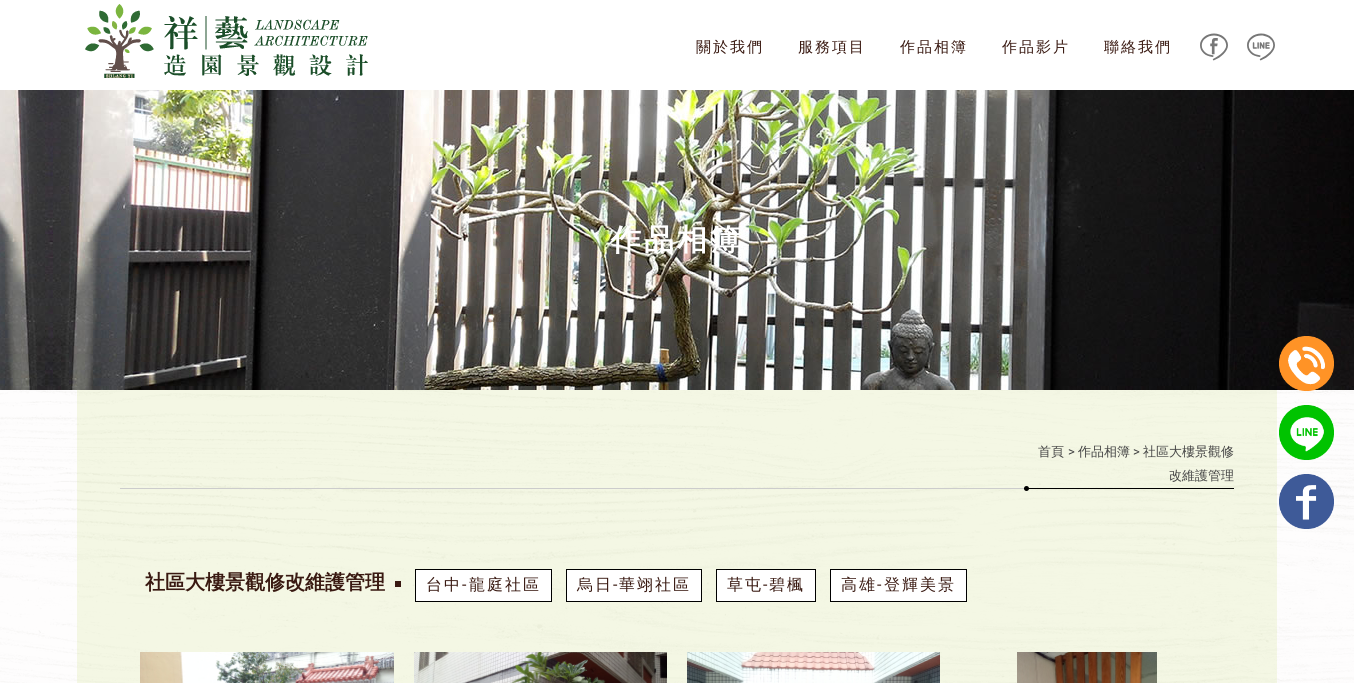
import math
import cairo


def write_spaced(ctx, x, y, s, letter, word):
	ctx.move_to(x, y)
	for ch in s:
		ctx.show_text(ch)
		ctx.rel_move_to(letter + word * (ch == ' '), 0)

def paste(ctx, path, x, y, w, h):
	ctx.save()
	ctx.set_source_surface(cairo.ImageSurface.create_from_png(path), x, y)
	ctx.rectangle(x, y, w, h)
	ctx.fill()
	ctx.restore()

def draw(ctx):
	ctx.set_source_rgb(1, 1, 1)
	ctx.paint()
	paste(ctx, 'media/1.png', 85, 4, 283, 74)
	ctx.select_font_face('WenQuanYi Zen Hei Medium')
	ctx.set_font_size(15)
	ctx.set_source_rgb(0.224, 0.098, 0.067)
	for x, y, s in [
		(696, 52, '關於我們'),
		(798, 52, '服務項目'),
		(900, 52, '作品相簿'),
		(1002, 52, '作品影片'),
		(1104, 52, '聯絡我們'),
	]:
		write_spaced(ctx, x, y, s, 2, 0)
	paste(ctx, 'media/2.png', 1200, 33, 28, 28)
	paste(ctx, 'media/3.png', 1247, 33, 28, 28)
	paste(ctx, 'media/4.png', 0, 390, 1354, 293)
	paste(ctx, 'media/5.png', 0, 90, 1354, 300)
	ctx.select_font_face('WenQuanYi Zen Hei', cairo.FONT_SLANT_NORMAL, cairo.FONT_WEIGHT_BOLD)
	ctx.set_font_size(30)
	ctx.set_source_rgb(1, 1, 1)
	write_spaced(ctx, 611, 250, '作品相簿', 3, 0)
	ctx.set_source_rgba(0.616, 0.749, 0, 0.1)
	ctx.rectangle(77, 390, 1200, 293)
	ctx.fill()
	ctx.set_source_rgb(0.8, 0.8, 0.8)
	ctx.rectangle(120, 488, 904, 1)
	ctx.fill()
	ctx.set_source_rgb(0, 0, 0)
	ctx.rectangle(1024, 488, 210, 1)
	ctx.fill()
	ctx.select_font_face('WenQuanYi Zen Hei Medium')
	ctx.set_font_size(13)
	ctx.set_source_rgb(0.267, 0.267, 0.267)
	ctx.move_to(1038, 456)
	ctx.show_text('首頁')
	ctx.select_font_face('Roboto')
	ctx.move_to(1068, 456)
	ctx.show_text('>')
	ctx.select_font_face('WenQuanYi Zen Hei Medium')
	ctx.move_to(1078, 456)
	ctx.show_text('作品相簿')
	ctx.select_font_face('Roboto')
	ctx.move_to(1133, 456)
	ctx.show_text('>')
	ctx.select_font_face('WenQuanYi Zen Hei Medium')
	ctx.move_to(1143, 456)
	ctx.show_text('社區大樓景觀修')
	ctx.move_to(1169, 480)
	ctx.show_text('改維護管理')
	ctx.set_source_rgb(0, 0, 0)
	ctx.new_path()
	ctx.arc(1026.5, 488.5, 2.5, 0, 2 * math.pi)
	ctx.fill()
	ctx.select_font_face('WenQuanYi Zen Hei', cairo.FONT_SLANT_NORMAL, cairo.FONT_WEIGHT_BOLD)
	ctx.set_font_size(20)
	ctx.set_source_rgb(0.224, 0.098, 0.067)
	ctx.move_to(145, 589)
	ctx.show_text('社區大樓景觀修改維護管理')
	ctx.rectangle(395, 581, 6, 6)
	ctx.fill()
	ctx.set_source_rgb(1, 1, 1)
	ctx.rectangle(415.5, 569.5, 136, 32)
	ctx.fill_preserve()
	ctx.set_source_rgb(0, 0, 0)
	ctx.set_line_width(1)
	ctx.stroke()
	ctx.select_font_face('WenQuanYi Zen Hei Medium')
	ctx.set_font_size(16)
	ctx.set_source_rgb(0.224, 0.098, 0.067)
	write_spaced(ctx, 426, 590, '台中', 2, 0)
	ctx.select_font_face('Roboto')
	write_spaced(ctx, 462, 590, '-', 2, 0)
	ctx.select_font_face('WenQuanYi Zen Hei Medium')
	write_spaced(ctx, 469, 590, '龍庭社區', 2, 0)
	ctx.set_source_rgb(1, 1, 1)
	ctx.rectangle(566.5, 569.5, 135, 32)
	ctx.fill_preserve()
	ctx.set_source_rgb(0, 0, 0)
	ctx.stroke()
	ctx.set_source_rgb(0.224, 0.098, 0.067)
	write_spaced(ctx, 577, 590, '烏日', 2, 0)
	ctx.select_font_face('Roboto')
	write_spaced(ctx, 613, 590, '-', 2, 0)
	ctx.select_font_face('WenQuanYi Zen Hei Medium')
	write_spaced(ctx, 619, 590, '華翊社區', 2, 0)
	ctx.set_source_rgb(1, 1, 1)
	ctx.rectangle(716.5, 569.5, 99, 32)
	ctx.fill_preserve()
	ctx.set_source_rgb(0, 0, 0)
	ctx.stroke()
	ctx.set_source_rgb(0.224, 0.098, 0.067)
	write_spaced(ctx, 727, 590, '草屯', 2, 0)
	ctx.select_font_face('Roboto')
	write_spaced(ctx, 763, 590, '-', 2, 0)
	ctx.select_font_face('WenQuanYi Zen Hei Medium')
	write_spaced(ctx, 769, 590, '碧楓', 2, 0)
	ctx.set_source_rgb(1, 1, 1)
	ctx.rectangle(830.5, 569.5, 136, 32)
	ctx.fill_preserve()
	ctx.set_source_rgb(0, 0, 0)
	ctx.stroke()
	ctx.set_source_rgb(0.224, 0.098, 0.067)
	write_spaced(ctx, 841, 590, '高雄', 2, 0)
	ctx.select_font_face('Roboto')
	write_spaced(ctx, 877, 590, '-', 2, 0)
	ctx.select_font_face('WenQuanYi Zen Hei Medium')
	write_spaced(ctx, 884, 590, '登輝美景', 2, 0)
	paste(ctx, 'media/6.png', 140, 652, 254, 31)
	paste(ctx, 'media/7.png', 414, 652, 253, 31)
	paste(ctx, 'media/8.png', 687, 652, 253, 31)
	paste(ctx, 'media/9.png', 1017, 652, 140, 31)
	paste(ctx, 'media/10.png', 1279, 336, 55, 55)
	paste(ctx, 'media/11.png', 1279, 405, 55, 55)
	paste(ctx, 'media/12.png', 1279, 474, 55, 55)


surface = cairo.ImageSurface(cairo.FORMAT_RGB24, 1354, 683)
ctx = cairo.Context(surface)
options = cairo.FontOptions()
options.set_hint_metrics(cairo.HINT_METRICS_OFF)
options.set_hint_style(cairo.HINT_STYLE_NONE)
ctx.set_font_options(options)
ctx.set_miter_limit(4)
draw(ctx)
surface.write_to_png('image.png')
